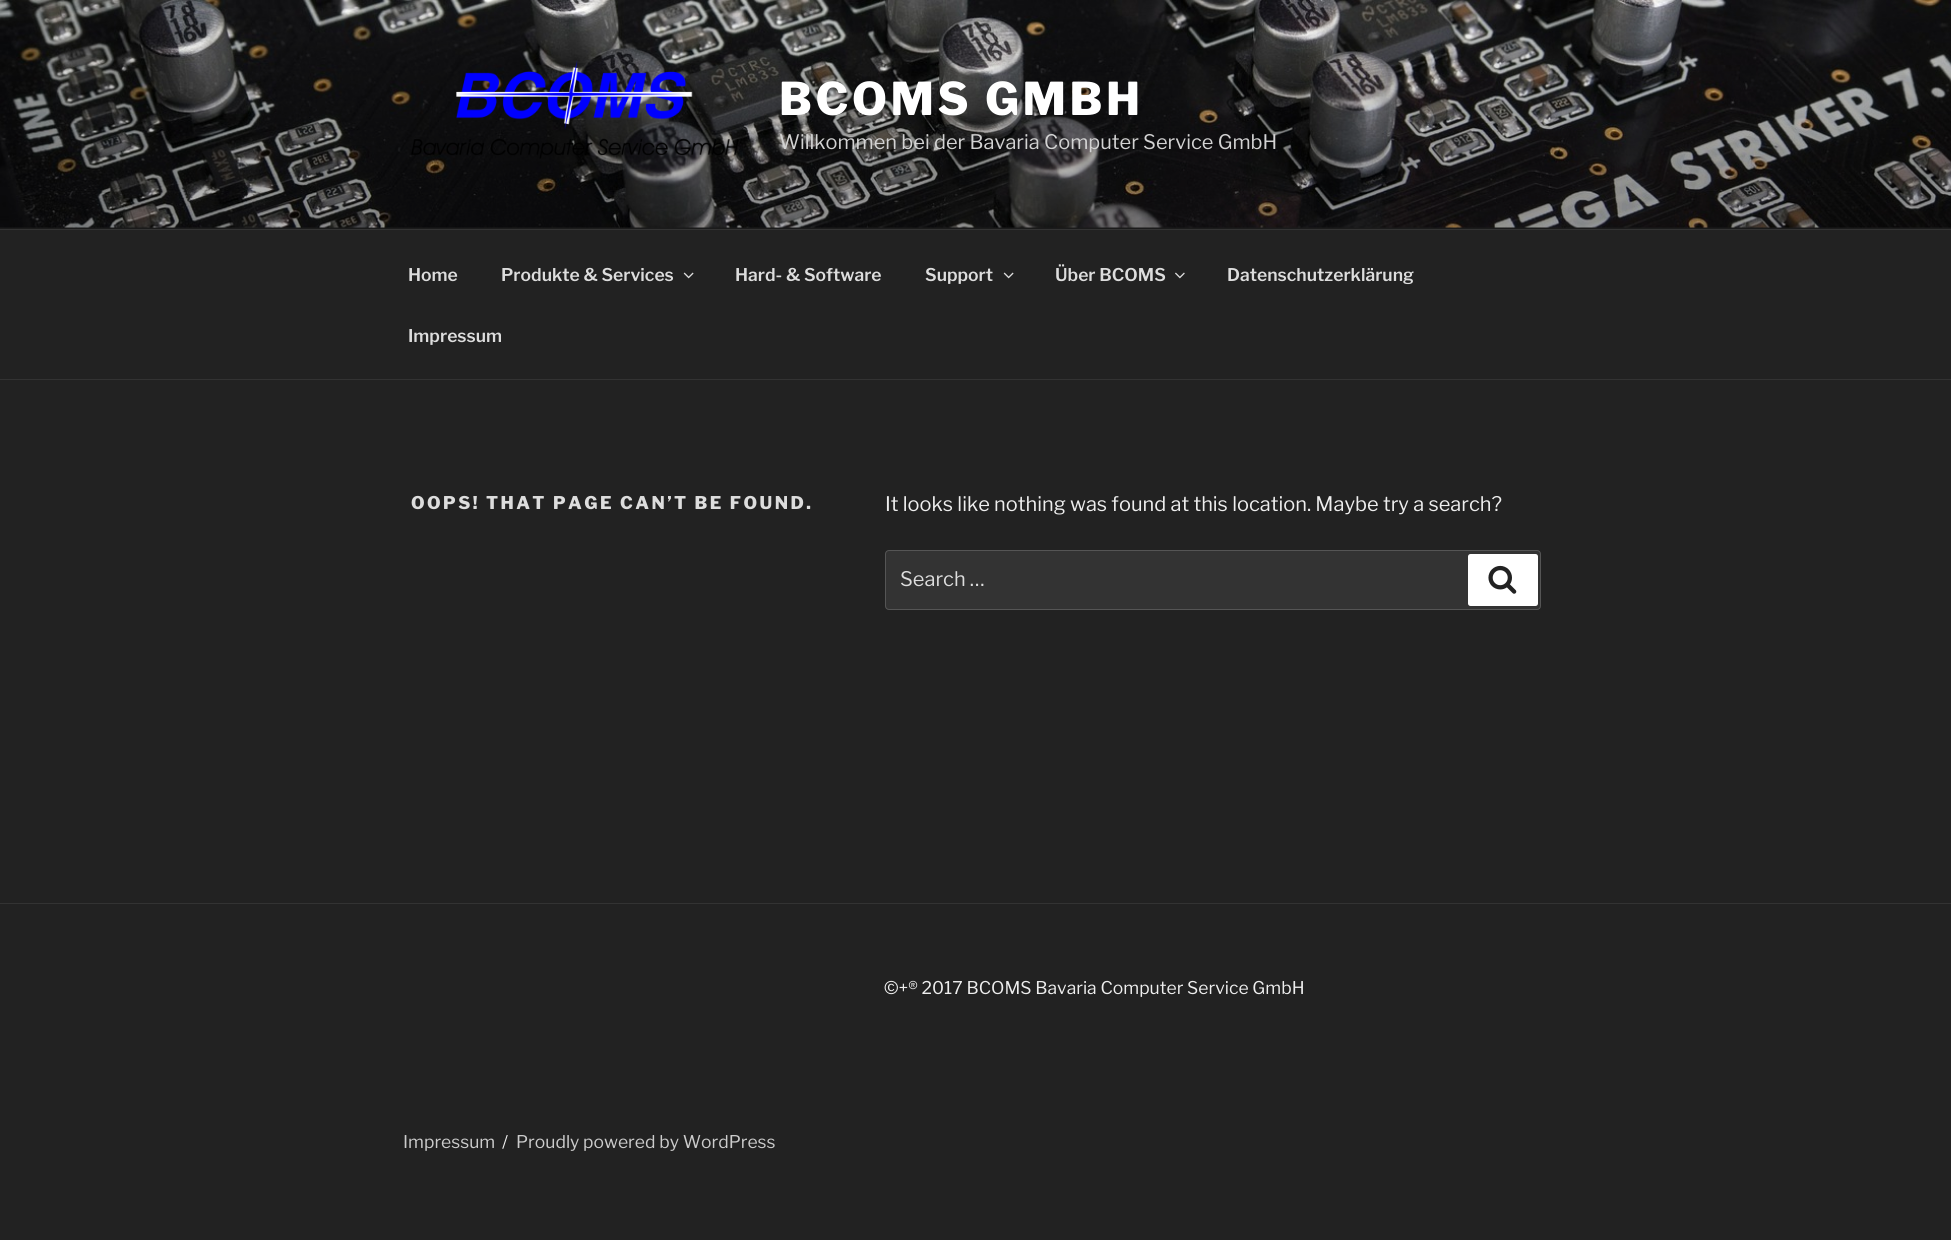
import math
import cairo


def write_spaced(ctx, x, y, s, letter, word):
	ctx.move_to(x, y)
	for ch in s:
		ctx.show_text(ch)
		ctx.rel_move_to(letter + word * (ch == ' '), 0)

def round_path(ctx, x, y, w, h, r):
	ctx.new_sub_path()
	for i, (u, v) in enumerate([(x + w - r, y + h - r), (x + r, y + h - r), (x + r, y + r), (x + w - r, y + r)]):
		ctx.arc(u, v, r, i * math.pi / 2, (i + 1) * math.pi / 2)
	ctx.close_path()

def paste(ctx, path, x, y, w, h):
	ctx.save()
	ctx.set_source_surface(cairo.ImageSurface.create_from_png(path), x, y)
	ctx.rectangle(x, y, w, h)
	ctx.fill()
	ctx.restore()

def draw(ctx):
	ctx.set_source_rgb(0.133, 0.133, 0.133)
	ctx.paint()
	ctx.set_source_rgb(0.149, 0.149, 0.149)
	ctx.rectangle(0, 227, 1951, 2)
	ctx.fill()
	paste(ctx, 'media/1.png', 0, 0, 1951, 228)
	gradient = cairo.LinearGradient(976, 0, 976, 229)
	gradient.add_color_stop_rgba(0, 0, 0, 0, 0)
	gradient.add_color_stop_rgba(0.75, 0, 0, 0, 0.3)
	gradient.add_color_stop_rgba(1, 0, 0, 0, 0.3)
	ctx.set_source(gradient)
	ctx.rectangle(0, 12, 1951, 217)
	ctx.fill()
	paste(ctx, 'media/2.png', 411, 60, 328, 99)
	ctx.select_font_face('Libre Franklin Thin')
	ctx.set_font_size(45)
	ctx.set_source_rgb(1, 1, 1)
	write_spaced(ctx, 779, 115, 'BCOMS GMBH', 3.6, 0)
	ctx.select_font_face('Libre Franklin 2 Thin')
	ctx.set_font_size(20)
	ctx.set_source_rgb(0.827, 0.827, 0.827)
	ctx.move_to(779, 149)
	ctx.show_text('Willkommen bei der Bavaria Computer Service GmbH')
	ctx.set_source_rgb(0.2, 0.2, 0.2)
	ctx.rectangle(0, 229, 1951, 1)
	ctx.fill()
	ctx.rectangle(0, 379, 1951, 1)
	ctx.fill()
	ctx.select_font_face('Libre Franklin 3 Thin')
	ctx.set_font_size(17.5)
	ctx.set_source_rgb(0.867, 0.867, 0.867)
	ctx.move_to(408, 281)
	ctx.show_text('Home')
	ctx.move_to(501, 281)
	ctx.show_text('Produkte & Services')
	paste(ctx, 'media/3.png', 683, 272, 11, 7)
	ctx.move_to(735, 281)
	ctx.show_text('Hard- & Software')
	ctx.move_to(925, 281)
	ctx.show_text('Support')
	paste(ctx, 'media/3.png', 1003, 272, 11, 7)
	ctx.move_to(1055, 281)
	ctx.show_text('Über BCOMS')
	paste(ctx, 'media/4.png', 1175, 272, 10, 7)
	ctx.move_to(1227, 281)
	ctx.show_text('Datenschutzerklärung')
	ctx.move_to(408, 342)
	ctx.show_text('Impressum')
	ctx.select_font_face('Libre Franklin Thin')
	write_spaced(ctx, 411, 509, 'OOPS! THAT PAGE CAN’T BE FOUND.', 2.45, 0)
	ctx.select_font_face('Libre Franklin 2 Thin')
	ctx.set_font_size(20)
	ctx.set_source_rgb(0.933, 0.933, 0.933)
	ctx.move_to(885, 511)
	ctx.show_text('It looks like nothing was found at this location. Maybe try a search?')
	ctx.set_source_rgb(0.2, 0.2, 0.2)
	round_path(ctx, 885.5, 550.5, 655, 59, 3.5)
	ctx.fill_preserve()
	ctx.set_source_rgb(0.333, 0.333, 0.333)
	ctx.set_line_width(1)
	ctx.stroke()
	ctx.set_source_rgb(0.867, 0.867, 0.867)
	ctx.move_to(900, 586)
	ctx.show_text('Search …')
	ctx.set_source_rgb(1, 1, 1)
	round_path(ctx, 1468, 554, 70, 52, 2.5)
	ctx.fill()
	paste(ctx, 'media/5.png', 1488, 565, 29, 29)
	ctx.set_source_rgb(0.2, 0.2, 0.2)
	ctx.rectangle(0, 903, 1951, 1)
	ctx.fill()
	ctx.set_font_size(17.5)
	ctx.set_source_rgb(0.933, 0.933, 0.933)
	ctx.move_to(884, 994)
	ctx.show_text('©+® 2017 BCOMS Bavaria Computer Service GmbH')
	ctx.set_source_rgb(0.8, 0.8, 0.8)
	ctx.move_to(403, 1148)
	ctx.show_text('Impressum')
	ctx.set_source_rgb(0.933, 0.933, 0.933)
	ctx.move_to(502, 1148)
	ctx.show_text('/')
	ctx.set_source_rgb(0.8, 0.8, 0.8)
	ctx.move_to(516, 1148)
	ctx.show_text('Proudly powered by WordPress')


surface = cairo.ImageSurface(cairo.FORMAT_RGB24, 1951, 1240)
ctx = cairo.Context(surface)
options = cairo.FontOptions()
options.set_hint_metrics(cairo.HINT_METRICS_OFF)
options.set_hint_style(cairo.HINT_STYLE_NONE)
ctx.set_font_options(options)
ctx.set_miter_limit(4)
draw(ctx)
surface.write_to_png('image.png')
